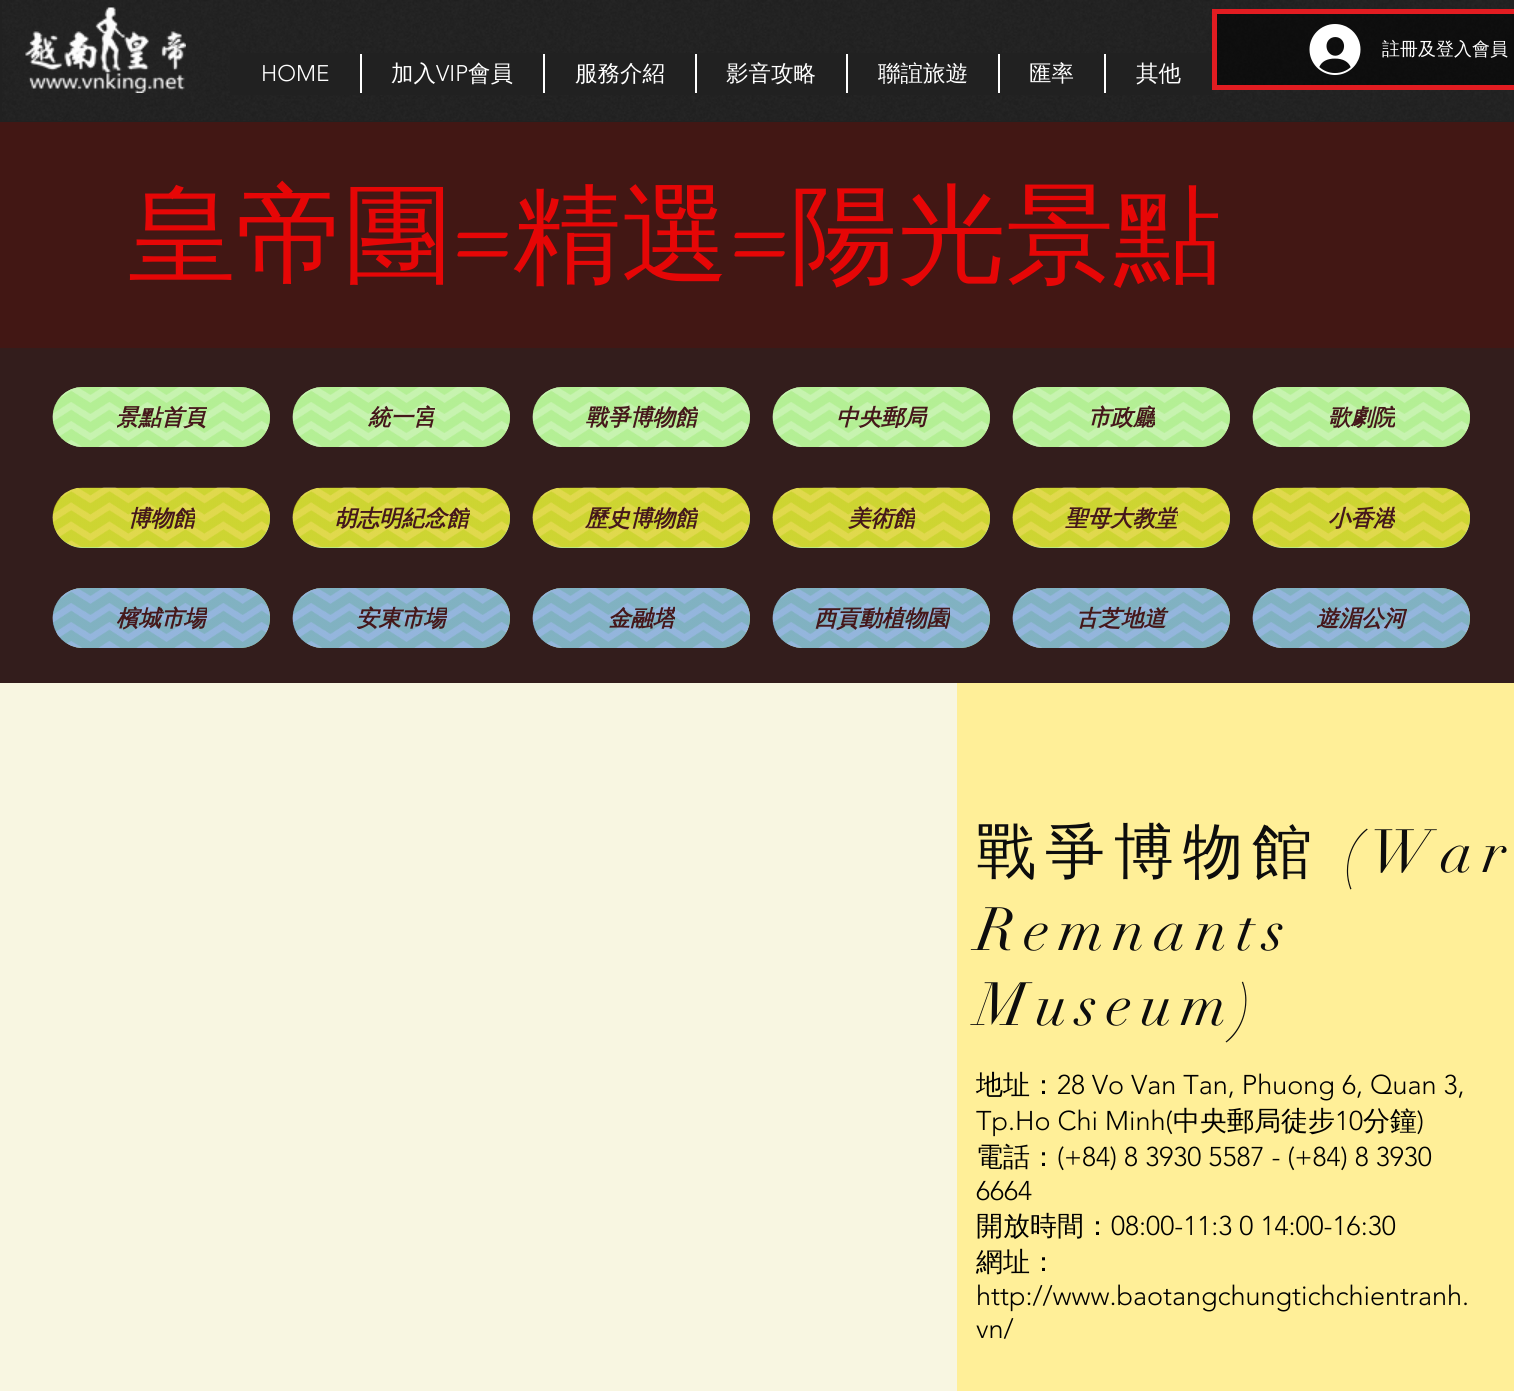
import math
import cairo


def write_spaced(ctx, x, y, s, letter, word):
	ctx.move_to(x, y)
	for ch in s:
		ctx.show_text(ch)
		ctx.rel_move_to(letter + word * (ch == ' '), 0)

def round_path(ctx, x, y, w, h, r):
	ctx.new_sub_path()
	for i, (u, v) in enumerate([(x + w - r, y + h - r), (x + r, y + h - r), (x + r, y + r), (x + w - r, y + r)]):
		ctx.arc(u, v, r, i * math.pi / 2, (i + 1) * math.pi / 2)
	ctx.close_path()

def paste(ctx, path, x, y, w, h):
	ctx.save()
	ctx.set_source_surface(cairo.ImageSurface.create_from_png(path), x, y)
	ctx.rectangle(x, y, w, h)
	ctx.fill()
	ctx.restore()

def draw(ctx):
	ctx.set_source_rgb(0.259, 0.09, 0.082)
	ctx.paint()
	ctx.set_source_rgb(0.129, 0.129, 0.129)
	ctx.rectangle(0, 0, 1514, 122)
	ctx.fill()
	paste(ctx, 'media/1.png', 2, 0, 1510, 121)
	paste(ctx, 'media/2.png', 25, 7, 161, 86)
	ctx.set_source_rgba(0, 0, 0, 0.59)
	ctx.rectangle(1214.5, 11.5, 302, 76)
	ctx.fill_preserve()
	ctx.set_source_rgb(0.886, 0.11, 0.129)
	ctx.set_line_width(5)
	ctx.stroke()
	paste(ctx, 'media/3.png', 1309, 24, 52, 51)
	ctx.select_font_face('WenQuanYi Zen Hei Medium')
	ctx.set_font_size(18)
	ctx.set_source_rgb(1, 1, 1)
	ctx.move_to(1382, 55)
	ctx.show_text('註冊及登入會員')
	ctx.set_source_rgb(0.129, 0.129, 0.129)
	ctx.rectangle(230, 53, 982, 42)
	ctx.fill()
	ctx.select_font_face('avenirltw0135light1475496 Light')
	ctx.set_font_size(22.5)
	ctx.set_source_rgb(1, 1, 1)
	ctx.move_to(261, 81)
	ctx.show_text('HOME')
	ctx.rectangle(360, 54, 2, 39)
	ctx.fill()
	ctx.select_font_face('WenQuanYi Zen Hei Medium')
	ctx.move_to(391, 81)
	ctx.show_text('加入')
	ctx.select_font_face('avenirltw0135light1475496 Light')
	ctx.move_to(436, 81)
	ctx.show_text('VIP')
	ctx.select_font_face('WenQuanYi Zen Hei Medium')
	ctx.move_to(468, 81)
	ctx.show_text('會員')
	ctx.rectangle(543, 54, 2, 39)
	ctx.fill()
	ctx.move_to(575, 81)
	ctx.show_text('服務介紹')
	ctx.rectangle(695, 54, 2, 39)
	ctx.fill()
	ctx.move_to(726, 81)
	ctx.show_text('影音攻略')
	ctx.rectangle(846, 54, 2, 39)
	ctx.fill()
	ctx.move_to(878, 81)
	ctx.show_text('聯誼旅遊')
	ctx.rectangle(998, 54, 2, 39)
	ctx.fill()
	ctx.move_to(1029, 81)
	ctx.show_text('匯率')
	ctx.rectangle(1104, 54, 2, 39)
	ctx.fill()
	ctx.move_to(1136, 81)
	ctx.show_text('其他')
	ctx.set_font_size(108)
	ctx.set_source_rgb(0.902, 0.027, 0.027)
	ctx.move_to(128, 272)
	ctx.show_text('皇帝團')
	ctx.select_font_face('EB Garamond')
	ctx.move_to(452, 272)
	ctx.show_text('=')
	ctx.select_font_face('WenQuanYi Zen Hei Medium')
	ctx.move_to(513, 272)
	ctx.show_text('精選')
	ctx.select_font_face('EB Garamond')
	ctx.move_to(729, 272)
	ctx.show_text('=')
	ctx.select_font_face('WenQuanYi Zen Hei Medium')
	ctx.move_to(790, 272)
	ctx.show_text('陽光景點')
	ctx.set_source_rgb(0.2, 0.114, 0.11)
	ctx.rectangle(0, 348, 1514, 335)
	ctx.fill()
	ctx.set_source_rgb(0.706, 0.937, 0.584)
	round_path(ctx, 53, 387, 217, 60, 30)
	ctx.fill()
	paste(ctx, 'media/4.png', 52, 387, 218, 60)
	ctx.save()
	ctx.rectangle(117, 401, 90, 34)
	ctx.clip()
	ctx.select_font_face('WenQuanYi Zen Hei', cairo.FONT_SLANT_ITALIC, cairo.FONT_WEIGHT_BOLD)
	ctx.set_font_size(22.5)
	ctx.set_source_rgb(0.271, 0.094, 0.106)
	ctx.move_to(116, 425)
	ctx.show_text('景點首頁')
	ctx.restore()
	round_path(ctx, 293, 387, 217, 60, 30)
	ctx.fill()
	paste(ctx, 'media/5.png', 292, 387, 218, 60)
	ctx.save()
	ctx.rectangle(368, 401, 67, 34)
	ctx.clip()
	ctx.select_font_face('WenQuanYi Zen Hei', cairo.FONT_SLANT_ITALIC, cairo.FONT_WEIGHT_BOLD)
	ctx.set_font_size(22.5)
	ctx.set_source_rgb(0.271, 0.094, 0.106)
	ctx.move_to(368, 425)
	ctx.show_text('統一宮')
	ctx.restore()
	round_path(ctx, 533, 387, 217, 60, 30)
	ctx.fill()
	paste(ctx, 'media/6.png', 532, 387, 218, 60)
	ctx.save()
	ctx.rectangle(585, 401, 113, 34)
	ctx.clip()
	ctx.select_font_face('WenQuanYi Zen Hei', cairo.FONT_SLANT_ITALIC, cairo.FONT_WEIGHT_BOLD)
	ctx.set_font_size(22.5)
	ctx.set_source_rgb(0.271, 0.094, 0.106)
	ctx.move_to(585, 425)
	ctx.show_text('戰爭博物館')
	ctx.restore()
	round_path(ctx, 773, 387, 217, 60, 30)
	ctx.fill()
	paste(ctx, 'media/6.png', 772, 387, 218, 60)
	ctx.select_font_face('WenQuanYi Zen Hei', cairo.FONT_SLANT_ITALIC, cairo.FONT_WEIGHT_BOLD)
	ctx.set_font_size(22.5)
	ctx.set_source_rgb(0.271, 0.094, 0.106)
	ctx.move_to(836, 425)
	ctx.show_text('中央郵局')
	ctx.set_source_rgb(0.706, 0.937, 0.584)
	round_path(ctx, 1013, 387, 217, 60, 30)
	ctx.fill()
	paste(ctx, 'media/7.png', 1012, 387, 218, 60)
	ctx.save()
	ctx.rectangle(1088, 401, 67, 34)
	ctx.clip()
	ctx.set_source_rgb(0.271, 0.094, 0.106)
	ctx.move_to(1088, 425)
	ctx.show_text('市政廳')
	ctx.restore()
	round_path(ctx, 1253, 387, 217, 60, 30)
	ctx.fill()
	paste(ctx, 'media/8.png', 1252, 387, 218, 60)
	ctx.save()
	ctx.rectangle(1328, 401, 67, 34)
	ctx.clip()
	ctx.set_source_rgb(0.271, 0.094, 0.106)
	ctx.move_to(1328, 425)
	ctx.show_text('歌劇院')
	ctx.restore()
	round_path(ctx, 53, 488, 217, 60, 30)
	ctx.fill()
	paste(ctx, 'media/9.png', 52, 487, 218, 61)
	ctx.save()
	ctx.rectangle(128, 501, 67, 35)
	ctx.clip()
	ctx.set_source_rgb(0.271, 0.094, 0.106)
	ctx.move_to(128, 526)
	ctx.show_text('博物館')
	ctx.restore()
	round_path(ctx, 293, 488, 217, 60, 30)
	ctx.fill()
	paste(ctx, 'media/10.png', 292, 487, 218, 61)
	ctx.save()
	ctx.rectangle(335, 501, 135, 35)
	ctx.clip()
	ctx.set_source_rgb(0.271, 0.094, 0.106)
	ctx.move_to(334, 526)
	ctx.show_text('胡志明紀念館')
	ctx.restore()
	round_path(ctx, 533, 488, 217, 60, 30)
	ctx.fill()
	paste(ctx, 'media/11.png', 532, 487, 218, 61)
	ctx.save()
	ctx.rectangle(585, 501, 113, 35)
	ctx.clip()
	ctx.set_source_rgb(0.271, 0.094, 0.106)
	ctx.move_to(585, 526)
	ctx.show_text('歷史博物館')
	ctx.restore()
	round_path(ctx, 773, 488, 217, 60, 30)
	ctx.fill()
	paste(ctx, 'media/11.png', 772, 487, 218, 61)
	ctx.save()
	ctx.rectangle(848, 501, 67, 35)
	ctx.clip()
	ctx.set_source_rgb(0.271, 0.094, 0.106)
	ctx.move_to(848, 526)
	ctx.show_text('美術館')
	ctx.restore()
	round_path(ctx, 1013, 488, 217, 60, 30)
	ctx.fill()
	paste(ctx, 'media/12.png', 1012, 487, 218, 61)
	ctx.save()
	ctx.rectangle(1065, 501, 113, 35)
	ctx.clip()
	ctx.set_source_rgb(0.271, 0.094, 0.106)
	ctx.move_to(1065, 526)
	ctx.show_text('聖母大教堂')
	ctx.restore()
	round_path(ctx, 1253, 488, 217, 60, 30)
	ctx.fill()
	paste(ctx, 'media/13.png', 1252, 487, 218, 61)
	ctx.save()
	ctx.rectangle(1328, 501, 67, 35)
	ctx.clip()
	ctx.set_source_rgb(0.271, 0.094, 0.106)
	ctx.move_to(1328, 526)
	ctx.show_text('小香港')
	ctx.restore()
	round_path(ctx, 53, 588, 217, 60, 30)
	ctx.fill()
	paste(ctx, 'media/14.png', 52, 588, 218, 60)
	ctx.save()
	ctx.rectangle(117, 602, 90, 34)
	ctx.clip()
	ctx.set_source_rgb(0.271, 0.094, 0.106)
	ctx.move_to(116, 626)
	ctx.show_text('檳城市場')
	ctx.restore()
	round_path(ctx, 293, 588, 217, 60, 30)
	ctx.fill()
	paste(ctx, 'media/15.png', 292, 588, 218, 60)
	ctx.save()
	ctx.rectangle(357, 602, 90, 34)
	ctx.clip()
	ctx.set_source_rgb(0.271, 0.094, 0.106)
	ctx.move_to(356, 626)
	ctx.show_text('安東市場')
	ctx.restore()
	round_path(ctx, 533, 588, 217, 60, 30)
	ctx.fill()
	paste(ctx, 'media/16.png', 532, 588, 218, 60)
	ctx.save()
	ctx.rectangle(608, 602, 67, 34)
	ctx.clip()
	ctx.set_source_rgb(0.271, 0.094, 0.106)
	ctx.move_to(608, 626)
	ctx.show_text('金融塔')
	ctx.restore()
	round_path(ctx, 773, 588, 217, 60, 30)
	ctx.fill()
	paste(ctx, 'media/16.png', 772, 588, 218, 60)
	ctx.save()
	ctx.rectangle(815, 602, 135, 34)
	ctx.clip()
	ctx.set_source_rgb(0.271, 0.094, 0.106)
	ctx.move_to(814, 626)
	ctx.show_text('西貢動植物園')
	ctx.restore()
	round_path(ctx, 1013, 588, 217, 60, 30)
	ctx.fill()
	paste(ctx, 'media/17.png', 1012, 588, 218, 60)
	ctx.set_source_rgb(0.271, 0.094, 0.106)
	ctx.move_to(1076, 626)
	ctx.show_text('古芝地道')
	ctx.set_source_rgb(0.706, 0.937, 0.584)
	round_path(ctx, 1253, 588, 217, 60, 30)
	ctx.fill()
	paste(ctx, 'media/18.png', 1252, 588, 218, 60)
	ctx.save()
	ctx.rectangle(1317, 602, 90, 34)
	ctx.clip()
	ctx.set_source_rgb(0.271, 0.094, 0.106)
	ctx.move_to(1316, 626)
	ctx.show_text('遊湄公河')
	ctx.restore()
	ctx.set_source_rgb(0.969, 0.961, 0.882)
	ctx.rectangle(0, 683, 957, 708)
	ctx.fill()
	ctx.set_source_rgb(1, 0.937, 0.596)
	ctx.rectangle(957, 683, 557, 708)
	ctx.fill()
	ctx.select_font_face('WenQuanYi Zen Hei Medium')
	ctx.set_font_size(60)
	ctx.set_source_rgb(0.051, 0.051, 0.051)
	write_spaced(ctx, 976, 872, '戰爭博物館', 9, 0)
	ctx.select_font_face('didot')
	for x, y, s in [
		(1344, 872, '(War'),
		(976, 950, 'Remnants'),
		(976, 1025, 'Museum)'),
	]:
		write_spaced(ctx, x, y, s, 9, 0)
	ctx.select_font_face('WenQuanYi Zen Hei Medium')
	ctx.set_font_size(27)
	ctx.set_source_rgb(0, 0, 0)
	ctx.move_to(976, 1094)
	ctx.show_text('地址：')
	ctx.select_font_face('avenirltw0135light1475496 Light')
	ctx.move_to(1057, 1094)
	ctx.show_text('28 Vo Van Tan, Phuong 6, Quan 3,')
	ctx.move_to(976, 1130)
	ctx.show_text('Tp.Ho Chi Minh(')
	ctx.select_font_face('WenQuanYi Zen Hei Medium')
	ctx.move_to(1173, 1130)
	ctx.show_text('中央郵局徒步')
	ctx.select_font_face('avenirltw0135light1475496 Light')
	ctx.move_to(1335, 1130)
	ctx.show_text('10')
	ctx.select_font_face('WenQuanYi Zen Hei Medium')
	ctx.move_to(1363, 1130)
	ctx.show_text('分鐘')
	ctx.select_font_face('avenirltw0135light1475496 Light')
	ctx.move_to(1417, 1130)
	ctx.show_text(')')
	ctx.select_font_face('WenQuanYi Zen Hei Medium')
	ctx.move_to(976, 1166)
	ctx.show_text('電話：')
	ctx.select_font_face('avenirltw0135light1475496 Light')
	ctx.move_to(1057, 1166)
	ctx.show_text('(+84) 8 3930 5587 - (+84) 8 3930')
	ctx.move_to(976, 1200)
	ctx.show_text('6664')
	ctx.select_font_face('WenQuanYi Zen Hei Medium')
	ctx.move_to(976, 1235)
	ctx.show_text('開放時間：')
	ctx.select_font_face('avenirltw0135light1475496 Light')
	ctx.move_to(1111, 1235)
	ctx.show_text('08:00-11:3 0 14:00-16:30')
	ctx.select_font_face('WenQuanYi Zen Hei Medium')
	ctx.move_to(976, 1271)
	ctx.show_text('網址：')
	ctx.select_font_face('avenirltw0135light1475496 Light')
	ctx.move_to(976, 1305)
	ctx.show_text('http://www.baotangchungtichchientranh.')
	ctx.move_to(976, 1338)
	ctx.show_text('vn/')


surface = cairo.ImageSurface(cairo.FORMAT_RGB24, 1514, 1391)
ctx = cairo.Context(surface)
options = cairo.FontOptions()
options.set_hint_metrics(cairo.HINT_METRICS_OFF)
options.set_hint_style(cairo.HINT_STYLE_NONE)
ctx.set_font_options(options)
ctx.set_miter_limit(4)
draw(ctx)
surface.write_to_png('image.png')
